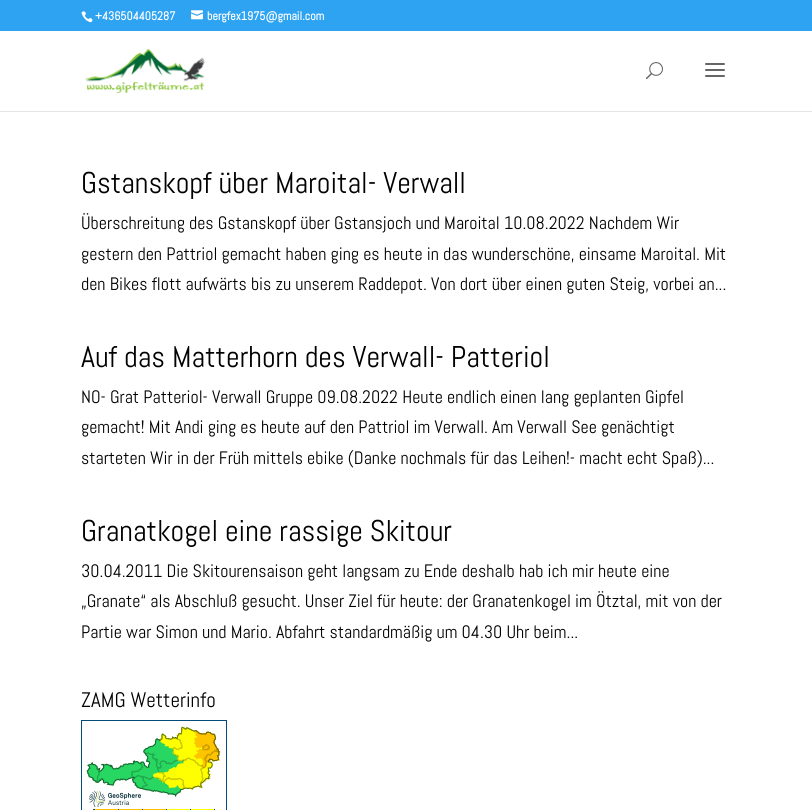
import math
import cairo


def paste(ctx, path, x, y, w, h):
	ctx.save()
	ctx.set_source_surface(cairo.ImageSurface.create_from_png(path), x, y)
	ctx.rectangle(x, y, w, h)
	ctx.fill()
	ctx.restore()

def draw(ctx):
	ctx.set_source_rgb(1, 1, 1)
	ctx.paint()
	ctx.set_source_rgb(0.18, 0.639, 0.949)
	ctx.rectangle(0, 0, 812, 31)
	ctx.fill()
	paste(ctx, 'media/1.png', 81, 11, 12, 12)
	ctx.select_font_face('Abel', cairo.FONT_SLANT_NORMAL, cairo.FONT_WEIGHT_BOLD)
	ctx.set_font_size(12)
	ctx.set_source_rgb(1, 1, 1)
	ctx.move_to(95, 20)
	ctx.show_text('+436504405287')
	paste(ctx, 'media/2.png', 191, 10, 12, 10)
	ctx.move_to(207, 20)
	ctx.show_text('bergfex1975@gmail.com')
	ctx.set_source_rgb(0.902, 0.902, 0.902)
	ctx.rectangle(0, 111, 812, 1)
	ctx.fill()
	paste(ctx, 'media/3.png', 85, 49, 120, 44)
	paste(ctx, 'media/4.png', 646, 62, 17, 18)
	paste(ctx, 'media/5.png', 705, 63, 20, 14)
	ctx.select_font_face('Abel')
	ctx.set_font_size(30)
	ctx.set_source_rgb(0, 0, 0)
	ctx.move_to(81, 193)
	ctx.show_text('Gstanskopf über Maroital- Verwall')
	ctx.set_font_size(18)
	for x, y, s in [
		(81, 229, 'Überschreitung des Gstanskopf über Gstansjoch und Maroital 10.08.2022 Nachdem Wir'),
		(81, 260, 'gestern den Pattriol gemacht haben ging es heute in das wunderschöne, einsame Maroital. Mit'),
		(81, 290, 'den Bikes flott aufwärts bis zu unserem Raddepot. Von dort über einen guten Steig, vorbei an...'),
	]:
		ctx.move_to(x, y)
		ctx.show_text(s)
	ctx.set_font_size(30)
	ctx.move_to(81, 367)
	ctx.show_text('Auf das Matterhorn des Verwall- Patteriol')
	ctx.set_font_size(18)
	for x, y, s in [
		(81, 403, 'NO- Grat Patteriol- Verwall Gruppe 09.08.2022 Heute endlich einen lang geplanten Gipfel'),
		(81, 433, 'gemacht! Mit Andi ging es heute auf den Pattriol im Verwall. Am Verwall See genächtigt'),
		(81, 464, 'starteten Wir in der Früh mittels ebike (Danke nochmals für das Leihen!- macht echt Spaß)...'),
	]:
		ctx.move_to(x, y)
		ctx.show_text(s)
	ctx.set_font_size(30)
	ctx.move_to(81, 541)
	ctx.show_text('Granatkogel eine rassige Skitour')
	ctx.set_font_size(18)
	for x, y, s in [
		(81, 577, '30.04.2011 Die Skitourensaison geht langsam zu Ende deshalb hab ich mir heute eine'),
		(81, 607, '„Granate“ als Abschluß gesucht. Unser Ziel für heute: der Granatenkogel im Ötztal, mit von der'),
		(81, 638, 'Partie war Simon und Mario. Abfahrt standardmäßig um 04.30 Uhr beim...'),
	]:
		ctx.move_to(x, y)
		ctx.show_text(s)
	ctx.set_font_size(21)
	ctx.move_to(81, 707)
	ctx.show_text('ZAMG Wetterinfo')
	paste(ctx, 'media/6.png', 81, 720, 146, 90)


surface = cairo.ImageSurface(cairo.FORMAT_RGB24, 812, 810)
ctx = cairo.Context(surface)
options = cairo.FontOptions()
options.set_hint_metrics(cairo.HINT_METRICS_OFF)
options.set_hint_style(cairo.HINT_STYLE_NONE)
ctx.set_font_options(options)
ctx.set_miter_limit(4)
draw(ctx)
surface.write_to_png('image.png')
